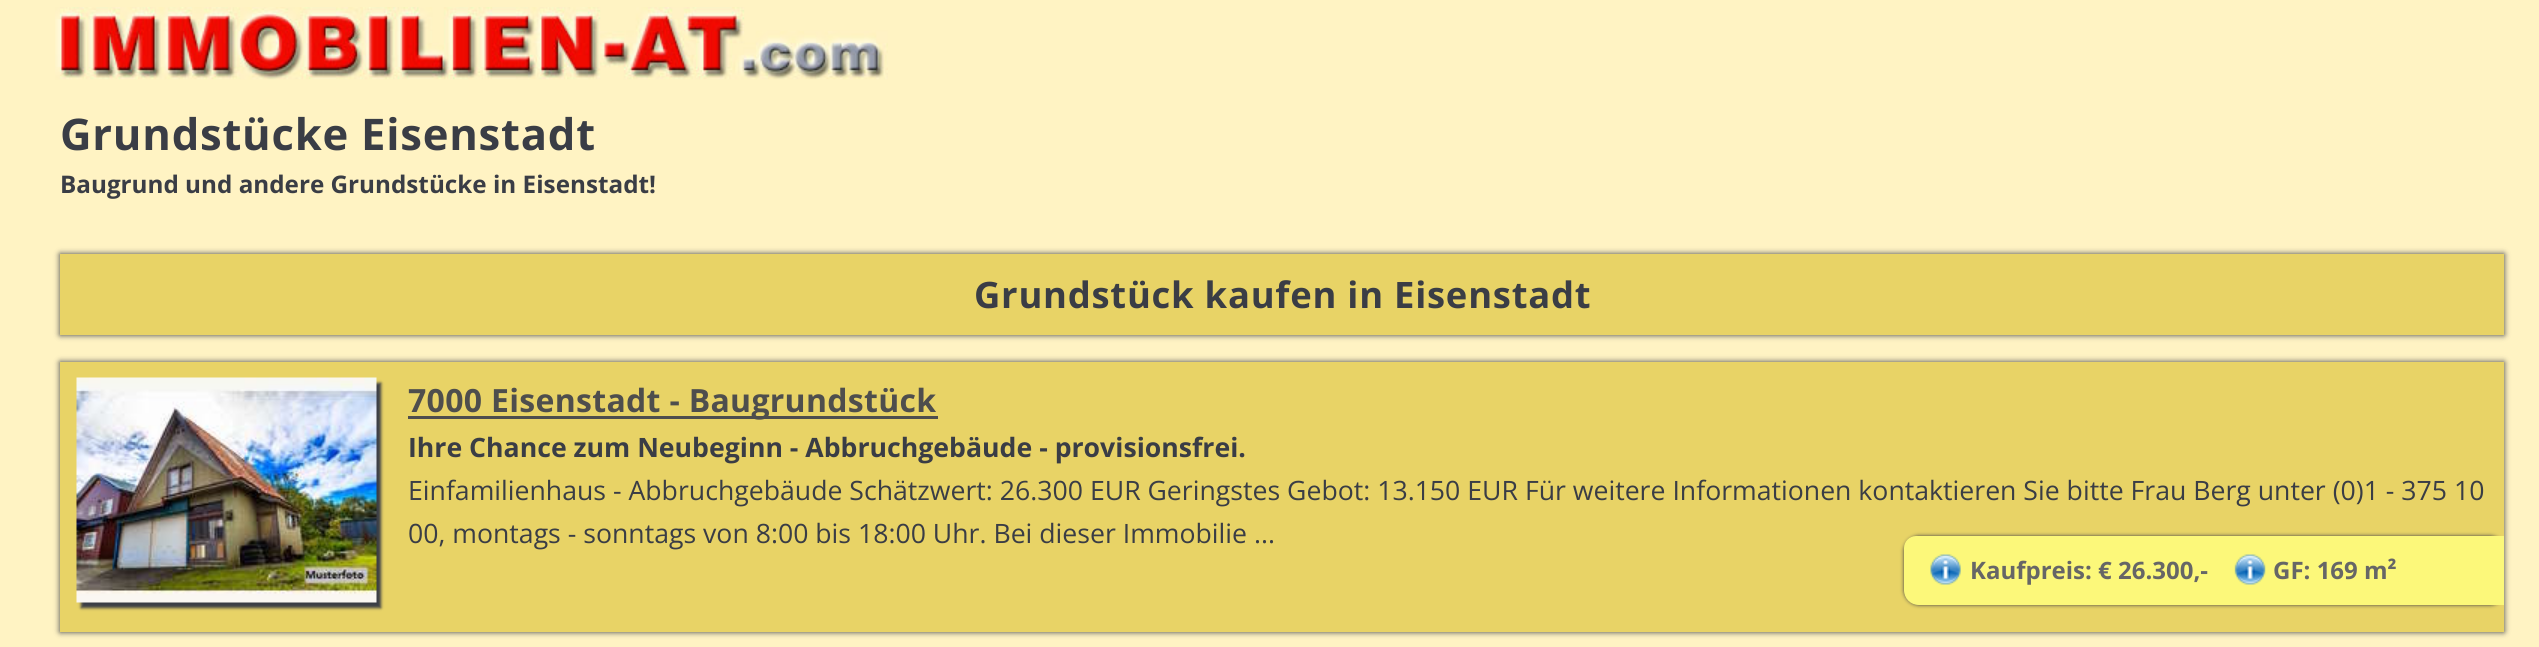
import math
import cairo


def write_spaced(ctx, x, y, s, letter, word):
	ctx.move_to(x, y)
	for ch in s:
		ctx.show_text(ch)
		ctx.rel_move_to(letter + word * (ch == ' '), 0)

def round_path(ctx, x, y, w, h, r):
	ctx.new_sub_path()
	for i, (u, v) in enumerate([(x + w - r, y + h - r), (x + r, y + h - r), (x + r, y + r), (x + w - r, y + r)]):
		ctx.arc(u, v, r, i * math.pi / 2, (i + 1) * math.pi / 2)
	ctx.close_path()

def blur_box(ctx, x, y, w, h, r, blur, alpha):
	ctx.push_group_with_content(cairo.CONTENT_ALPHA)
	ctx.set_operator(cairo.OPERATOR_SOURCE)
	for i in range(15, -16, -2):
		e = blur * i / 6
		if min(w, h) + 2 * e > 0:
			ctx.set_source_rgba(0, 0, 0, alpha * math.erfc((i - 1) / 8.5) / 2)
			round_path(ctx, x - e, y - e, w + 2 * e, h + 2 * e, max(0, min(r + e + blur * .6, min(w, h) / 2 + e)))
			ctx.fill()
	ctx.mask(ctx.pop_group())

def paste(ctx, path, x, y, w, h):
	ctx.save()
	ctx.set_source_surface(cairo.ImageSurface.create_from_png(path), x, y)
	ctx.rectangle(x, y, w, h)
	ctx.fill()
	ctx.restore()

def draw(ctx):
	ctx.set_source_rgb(1, 0.953, 0.765)
	ctx.paint()
	paste(ctx, 'media/1.png', 55, 7, 833, 73)
	ctx.select_font_face('Open Sans', cairo.FONT_SLANT_NORMAL, cairo.FONT_WEIGHT_BOLD)
	ctx.set_font_size(43.6)
	ctx.set_source_rgb(0.227, 0.239, 0.271)
	write_spaced(ctx, 60, 150, 'Grundstücke Eisenstadt', 0.75, 0)
	ctx.set_font_size(24.25)
	ctx.move_to(60, 193)
	ctx.show_text('Baugrund und andere Grundstücke in Eisenstadt!')
	ctx.set_source_rgb(0.227, 0.239, 0.271)
	blur_box(ctx, 60, 254, 2444, 81, 0, 3, 1)
	ctx.set_source_rgb(0.91, 0.827, 0.4)
	ctx.rectangle(60, 254, 2444, 81)
	ctx.fill()
	ctx.set_font_size(36.4)
	ctx.set_source_rgb(0.227, 0.239, 0.271)
	write_spaced(ctx, 974, 308, 'Grundstück kaufen in Eisenstadt', 0.75, 0)
	ctx.set_source_rgb(0.227, 0.239, 0.271)
	blur_box(ctx, 60, 362, 2444, 270, 0, 3, 1)
	ctx.set_source_rgb(0.91, 0.827, 0.4)
	ctx.rectangle(60, 362, 2444, 270)
	ctx.fill()
	ctx.set_source_rgb(0.227, 0.239, 0.271)
	blur_box(ctx, 81, 383, 300, 225, 0, 1.5, 1)
	paste(ctx, 'media/2.png', 76, 377, 301, 226)
	ctx.set_source_rgb(0.306, 0.306, 0.302)
	ctx.rectangle(408, 416, 530, 3)
	ctx.fill()
	ctx.set_font_size(32)
	write_spaced(ctx, 408, 412, '7000 Eisenstadt - Baugrundstück', 0.3, 0)
	ctx.set_font_size(26.65)
	ctx.set_source_rgb(0.227, 0.239, 0.271)
	ctx.move_to(408, 457)
	ctx.show_text('Ihre Chance zum Neubeginn - Abbruchgebäude - provisionsfrei.')
	ctx.select_font_face('Open Sans')
	ctx.move_to(408, 500)
	ctx.show_text('Einfamilienhaus - Abbruchgebäude Schätzwert: 26.300 EUR Geringstes Gebot: 13.150 EUR Für weitere Informationen kontaktieren Sie bitte Frau Berg unter (0)1 - 375 10')
	ctx.move_to(408, 543)
	ctx.show_text('00, montags - sonntags von 8:00 bis 18:00 Uhr. Bei dieser Immobilie ...')
	ctx.save()
	ctx.rectangle(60, 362, 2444, 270)
	ctx.clip()
	ctx.set_source_rgb(0.227, 0.239, 0.271)
	blur_box(ctx, 1904, 536, 601, 69, 15, 2, 1)
	ctx.restore()
	ctx.set_source_rgb(0.988, 0.969, 0.478)
	ctx.new_path()
	ctx.move_to(1916, 536)
	ctx.line_to(2504, 536)
	ctx.line_to(2504, 605)
	ctx.line_to(1919, 605)
	ctx.curve_to(1910.5, 605, 1904, 598.5, 1904, 590)
	ctx.line_to(1904, 548)
	ctx.curve_to(1904, 541.5, 1909.5, 536, 1916, 536)
	ctx.close_path()
	ctx.fill()
	paste(ctx, 'media/3.png', 1930, 554, 31, 31)
	ctx.select_font_face('Open Sans', cairo.FONT_SLANT_NORMAL, cairo.FONT_WEIGHT_BOLD)
	ctx.set_font_size(24)
	ctx.set_source_rgb(0.4, 0.4, 0.4)
	ctx.move_to(1970, 579)
	ctx.show_text('Kaufpreis: € 26.300,-')
	paste(ctx, 'media/4.png', 2234, 554, 32, 31)
	ctx.move_to(2273, 579)
	ctx.show_text('GF: 169 m²')


surface = cairo.ImageSurface(cairo.FORMAT_RGB24, 2539, 647)
ctx = cairo.Context(surface)
options = cairo.FontOptions()
options.set_hint_metrics(cairo.HINT_METRICS_OFF)
options.set_hint_style(cairo.HINT_STYLE_NONE)
ctx.set_font_options(options)
ctx.set_miter_limit(4)
draw(ctx)
surface.write_to_png('image.png')
